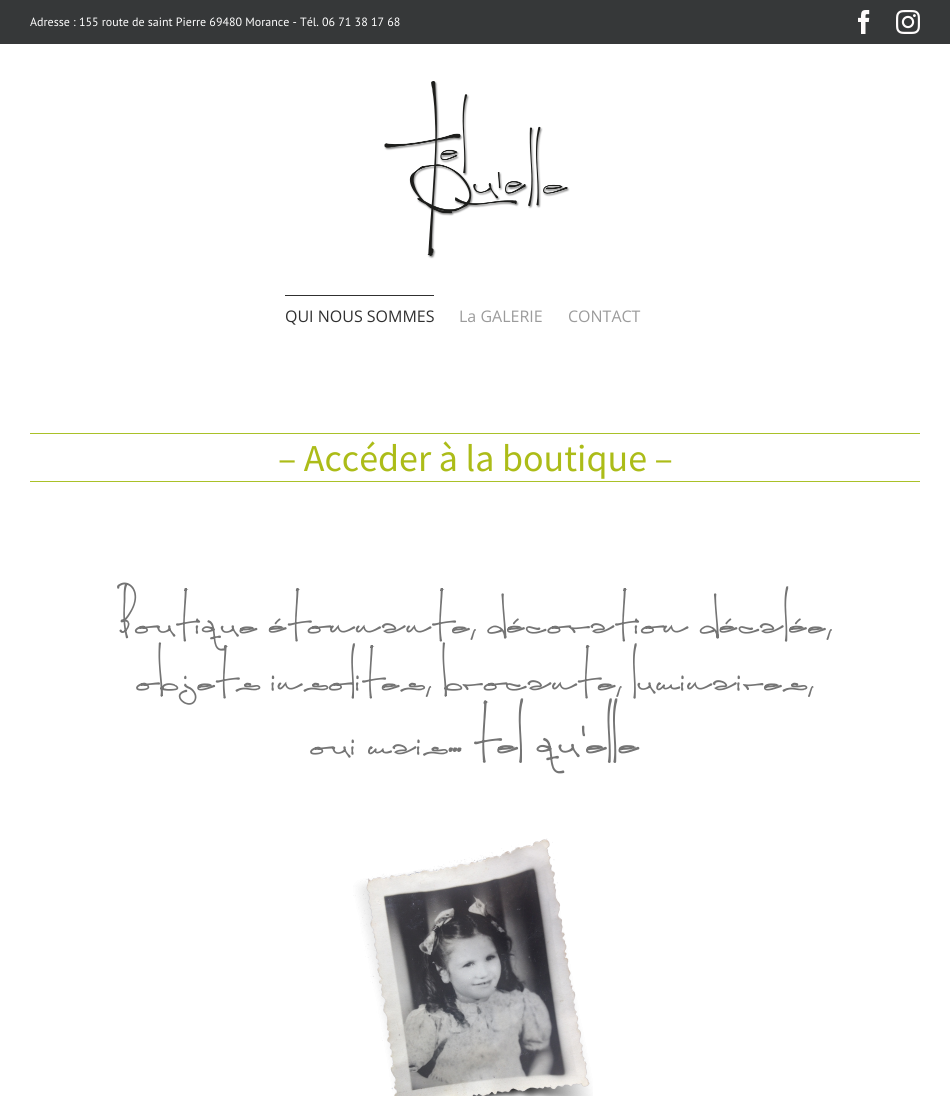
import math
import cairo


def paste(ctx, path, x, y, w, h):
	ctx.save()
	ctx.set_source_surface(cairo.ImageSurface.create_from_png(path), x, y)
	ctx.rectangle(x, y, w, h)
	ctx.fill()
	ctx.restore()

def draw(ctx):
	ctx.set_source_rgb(1, 1, 1)
	ctx.paint()
	ctx.set_source_rgb(0.212, 0.22, 0.224)
	ctx.rectangle(0, 0, 950, 44)
	ctx.fill()
	ctx.select_font_face('PT Sans')
	ctx.set_font_size(12)
	ctx.set_source_rgb(1, 1, 1)
	ctx.move_to(30, 26)
	ctx.show_text('Adresse : 155 route de saint Pierre 69480 Morance - Tél. 06 71 38 17 68')
	paste(ctx, 'media/1.png', 858, 10, 12, 24)
	paste(ctx, 'media/2.png', 896, 10, 24, 24)
	paste(ctx, 'media/3.png', 384, 81, 186, 178)
	ctx.set_source_rgb(0.188, 0.188, 0.188)
	ctx.rectangle(285, 295, 149, 1)
	ctx.fill()
	ctx.select_font_face('Open Sans')
	ctx.set_font_size(16)
	ctx.move_to(285, 322)
	ctx.show_text('QUI NOUS SOMMES')
	ctx.set_source_rgb(0.608, 0.608, 0.608)
	ctx.move_to(459, 322)
	ctx.show_text('La GALERIE')
	ctx.move_to(568, 322)
	ctx.show_text('CONTACT')
	ctx.set_source_rgb(0.667, 0.757, 0.157)
	ctx.rectangle(30, 433, 890, 1)
	ctx.fill()
	ctx.select_font_face('Source Sans Pro')
	ctx.set_font_size(38)
	ctx.set_source_rgb(0.675, 0.737, 0.094)
	ctx.move_to(278, 471)
	ctx.show_text('– Accéder à la boutique –')
	ctx.set_source_rgb(0.667, 0.757, 0.157)
	ctx.rectangle(30, 481, 890, 1)
	ctx.fill()
	ctx.select_font_face('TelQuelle', cairo.FONT_SLANT_NORMAL, cairo.FONT_WEIGHT_BOLD)
	ctx.set_font_size(48)
	ctx.set_source_rgb(0.455, 0.455, 0.455)
	ctx.move_to(117, 640)
	ctx.show_text('Boutique étonnante, décoration décalée,')
	ctx.move_to(136, 697)
	ctx.show_text('objets insolites, brocante, luminaires,')
	ctx.set_font_size(56)
	ctx.move_to(474, 761)
	ctx.show_text('tel qu')
	ctx.select_font_face('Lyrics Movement', cairo.FONT_SLANT_NORMAL, cairo.FONT_WEIGHT_BOLD)
	ctx.set_font_size(64)
	ctx.move_to(580, 741)
	ctx.show_text('‘')
	ctx.select_font_face('TelQuelle', cairo.FONT_SLANT_NORMAL, cairo.FONT_WEIGHT_BOLD)
	ctx.set_font_size(56)
	ctx.move_to(586, 761)
	ctx.show_text('elle')
	ctx.set_font_size(48)
	ctx.move_to(310, 761)
	ctx.show_text('oui mais')
	ctx.select_font_face('Lyrics Movement', cairo.FONT_SLANT_NORMAL, cairo.FONT_WEIGHT_BOLD)
	ctx.set_font_size(56)
	ctx.move_to(448, 751)
	ctx.show_text('…')
	paste(ctx, 'media/4.png', 353, 838, 240, 258)


surface = cairo.ImageSurface(cairo.FORMAT_RGB24, 950, 1096)
ctx = cairo.Context(surface)
options = cairo.FontOptions()
options.set_hint_metrics(cairo.HINT_METRICS_OFF)
options.set_hint_style(cairo.HINT_STYLE_NONE)
ctx.set_font_options(options)
ctx.set_miter_limit(4)
draw(ctx)
surface.write_to_png('image.png')
